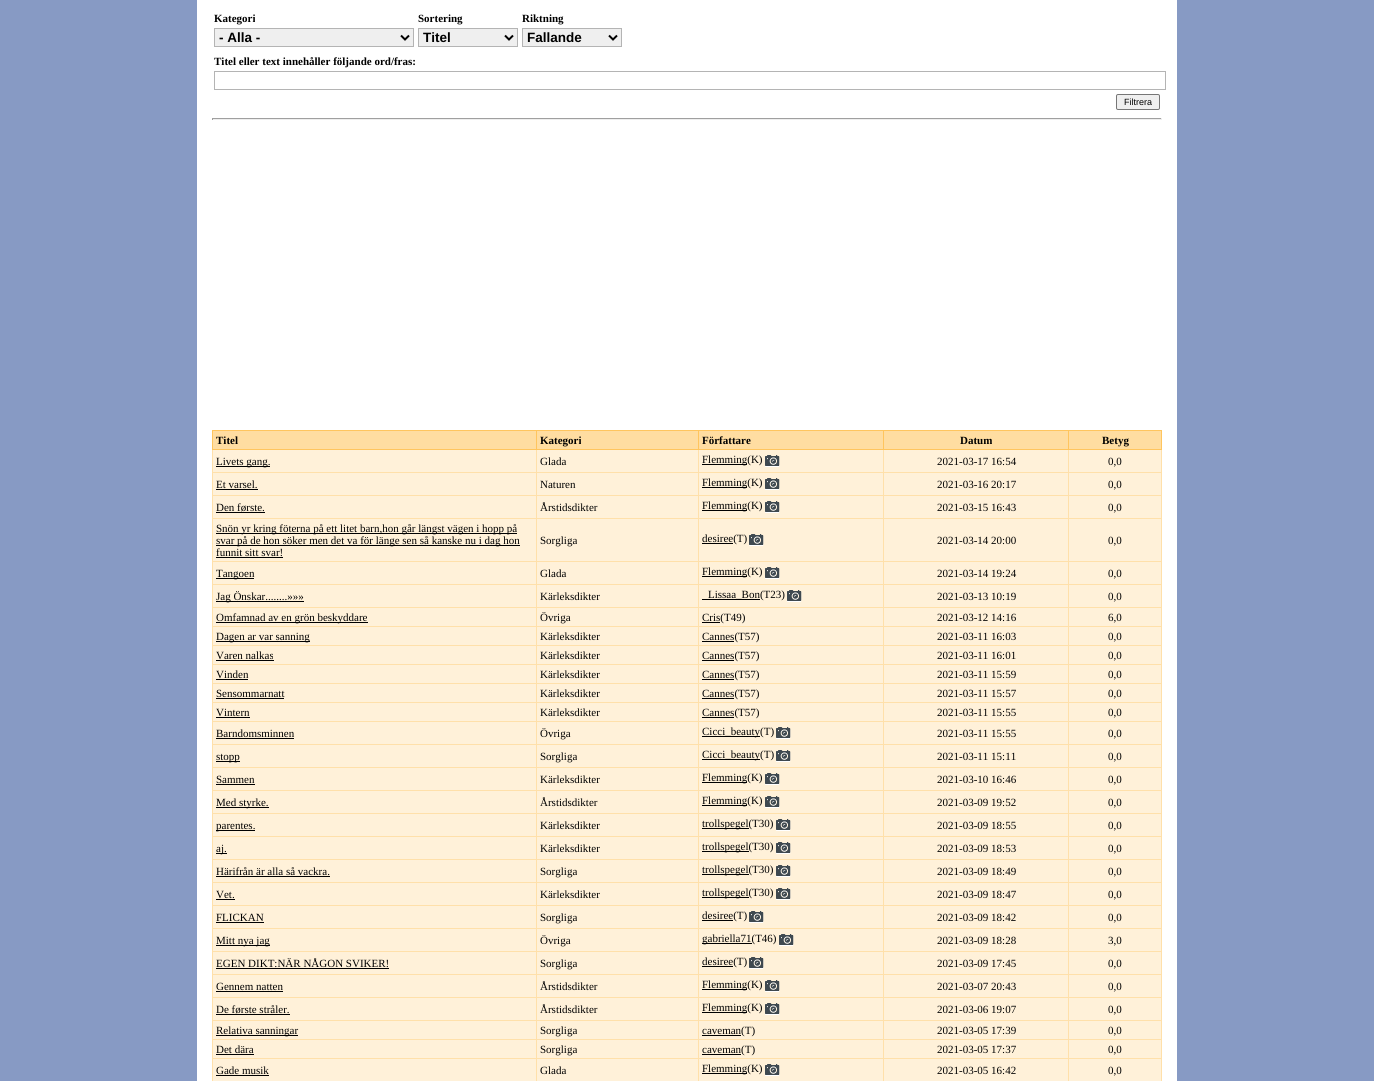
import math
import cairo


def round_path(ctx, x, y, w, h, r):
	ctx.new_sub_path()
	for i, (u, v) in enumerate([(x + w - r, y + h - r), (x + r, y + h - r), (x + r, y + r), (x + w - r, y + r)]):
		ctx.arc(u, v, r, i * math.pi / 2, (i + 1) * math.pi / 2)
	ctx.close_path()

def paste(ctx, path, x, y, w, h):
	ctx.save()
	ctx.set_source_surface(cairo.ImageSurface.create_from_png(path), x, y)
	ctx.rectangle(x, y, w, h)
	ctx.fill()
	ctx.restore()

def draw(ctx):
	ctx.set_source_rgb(0.529, 0.604, 0.769)
	ctx.paint()
	ctx.set_source_rgb(1, 1, 1)
	ctx.rectangle(197, 0, 980, 1081)
	ctx.fill()
	ctx.select_font_face('Liberation Serif', cairo.FONT_SLANT_NORMAL, cairo.FONT_WEIGHT_BOLD)
	ctx.set_font_size(11)
	ctx.set_source_rgb(0, 0, 0)
	for x, y, s in [
		(214, 22, 'Kategori'),
		(418, 22, 'Sortering'),
		(522, 22, 'Riktning'),
	]:
		ctx.move_to(x, y)
		ctx.show_text(s)
	ctx.set_source_rgb(0.937, 0.937, 0.937)
	ctx.rectangle(214.5, 28.5, 199, 18)
	ctx.fill_preserve()
	ctx.set_source_rgb(0.706, 0.706, 0.706)
	ctx.set_line_width(1)
	ctx.stroke()
	ctx.new_path()
	ctx.move_to(401, 35.5)
	ctx.line_to(405, 39.5)
	ctx.line_to(409, 35.5)
	ctx.set_source_rgb(0, 0, 0)
	ctx.set_line_width(2)
	ctx.stroke()
	ctx.select_font_face('Liberation Sans', cairo.FONT_SLANT_NORMAL, cairo.FONT_WEIGHT_BOLD)
	ctx.set_font_size(13.5)
	ctx.move_to(219, 42)
	ctx.show_text('- Alla -')
	ctx.set_source_rgb(0.937, 0.937, 0.937)
	ctx.rectangle(418.5, 28.5, 99, 18)
	ctx.fill_preserve()
	ctx.set_source_rgb(0.706, 0.706, 0.706)
	ctx.set_line_width(1)
	ctx.stroke()
	ctx.new_path()
	ctx.move_to(505, 35.5)
	ctx.line_to(509, 39.5)
	ctx.line_to(513, 35.5)
	ctx.set_source_rgb(0, 0, 0)
	ctx.set_line_width(2)
	ctx.stroke()
	ctx.move_to(423, 42)
	ctx.show_text('Titel')
	ctx.set_source_rgb(0.937, 0.937, 0.937)
	ctx.rectangle(522.5, 28.5, 99, 18)
	ctx.fill_preserve()
	ctx.set_source_rgb(0.706, 0.706, 0.706)
	ctx.set_line_width(1)
	ctx.stroke()
	ctx.new_path()
	ctx.move_to(609, 35.5)
	ctx.line_to(613, 39.5)
	ctx.line_to(617, 35.5)
	ctx.set_source_rgb(0, 0, 0)
	ctx.set_line_width(2)
	ctx.stroke()
	ctx.move_to(527, 42)
	ctx.show_text('Fallande')
	ctx.select_font_face('Liberation Serif', cairo.FONT_SLANT_NORMAL, cairo.FONT_WEIGHT_BOLD)
	ctx.set_font_size(11)
	ctx.move_to(214, 65)
	ctx.show_text('Titel eller text innehåller följande ord/fras:')
	ctx.rectangle(214.5, 71.5, 951, 18)
	ctx.set_source_rgb(0.706, 0.706, 0.706)
	ctx.set_line_width(1)
	ctx.stroke()
	ctx.set_source_rgb(0.937, 0.937, 0.937)
	round_path(ctx, 1116.5, 94.5, 43, 15, 1.5)
	ctx.fill_preserve()
	ctx.set_source_rgb(0.463, 0.463, 0.463)
	ctx.stroke()
	ctx.select_font_face('Liberation Sans')
	ctx.set_font_size(9)
	ctx.set_source_rgb(0, 0, 0)
	ctx.move_to(1124, 105)
	ctx.show_text('Filtrera')
	ctx.set_source_rgb(0.624, 0.624, 0.624)
	ctx.rectangle(212, 118, 950, 1)
	ctx.fill()
	ctx.set_source_rgb(0.933, 0.933, 0.933)
	ctx.rectangle(1161, 118, 1, 2)
	ctx.rectangle(212, 119, 950, 1)
	ctx.fill()
	ctx.set_source_rgb(0.624, 0.624, 0.624)
	ctx.rectangle(212, 118, 1, 2)
	ctx.fill()
	ctx.set_source_rgb(1, 0.867, 0.631)
	ctx.rectangle(213, 431, 323, 18)
	ctx.fill()
	ctx.set_source_rgb(1, 0.773, 0.369)
	ctx.rectangle(1068, 430, 94, 1)
	ctx.fill()
	ctx.set_source_rgb(1, 0.878, 0.667)
	ctx.rectangle(1068, 472, 94, 1)
	ctx.rectangle(1068, 495, 94, 1)
	ctx.rectangle(1068, 518, 94, 1)
	ctx.rectangle(1068, 561, 94, 1)
	ctx.rectangle(1068, 584, 94, 1)
	ctx.rectangle(1068, 607, 94, 1)
	ctx.rectangle(1068, 626, 94, 1)
	ctx.rectangle(1068, 645, 94, 1)
	ctx.rectangle(1068, 664, 94, 1)
	ctx.rectangle(1068, 683, 94, 1)
	ctx.rectangle(1068, 702, 94, 1)
	ctx.rectangle(1068, 721, 94, 1)
	ctx.rectangle(1068, 744, 94, 1)
	ctx.rectangle(1068, 767, 94, 1)
	ctx.rectangle(1068, 790, 94, 1)
	ctx.rectangle(1068, 813, 94, 1)
	ctx.rectangle(1068, 836, 94, 1)
	ctx.rectangle(1068, 859, 94, 1)
	ctx.rectangle(1068, 882, 94, 1)
	ctx.rectangle(1068, 905, 94, 1)
	ctx.rectangle(1068, 928, 94, 1)
	ctx.rectangle(1068, 951, 94, 1)
	ctx.rectangle(1068, 974, 94, 1)
	ctx.rectangle(1068, 997, 94, 1)
	ctx.rectangle(1068, 1020, 94, 1)
	ctx.rectangle(1068, 1039, 94, 1)
	ctx.rectangle(1068, 1058, 94, 1)
	ctx.rectangle(1161, 1058, 1, 23)
	ctx.rectangle(1161, 1039, 1, 20)
	ctx.rectangle(1161, 1020, 1, 20)
	ctx.rectangle(1161, 997, 1, 24)
	ctx.rectangle(1161, 974, 1, 24)
	ctx.rectangle(1161, 951, 1, 24)
	ctx.rectangle(1161, 928, 1, 24)
	ctx.rectangle(1161, 905, 1, 24)
	ctx.rectangle(1161, 882, 1, 24)
	ctx.rectangle(1161, 859, 1, 24)
	ctx.rectangle(1161, 836, 1, 24)
	ctx.rectangle(1161, 813, 1, 24)
	ctx.rectangle(1161, 790, 1, 24)
	ctx.rectangle(1161, 767, 1, 24)
	ctx.rectangle(1161, 744, 1, 24)
	ctx.rectangle(1161, 721, 1, 24)
	ctx.rectangle(1161, 702, 1, 20)
	ctx.rectangle(1161, 683, 1, 20)
	ctx.rectangle(1161, 664, 1, 20)
	ctx.rectangle(1161, 645, 1, 20)
	ctx.rectangle(1161, 626, 1, 20)
	ctx.rectangle(1161, 607, 1, 20)
	ctx.rectangle(1161, 584, 1, 24)
	ctx.rectangle(1161, 561, 1, 24)
	ctx.rectangle(1161, 518, 1, 44)
	ctx.rectangle(1161, 495, 1, 24)
	ctx.rectangle(1161, 449, 1, 47)
	ctx.fill()
	ctx.set_source_rgb(1, 0.773, 0.369)
	ctx.rectangle(1161, 430, 1, 20)
	ctx.fill()
	ctx.set_source_rgb(1, 0.878, 0.667)
	ctx.rectangle(1068, 1058, 1, 23)
	ctx.rectangle(883, 1058, 186, 1)
	ctx.rectangle(1068, 1039, 1, 20)
	ctx.rectangle(883, 1039, 186, 1)
	ctx.rectangle(1068, 1020, 1, 20)
	ctx.rectangle(883, 1020, 186, 1)
	ctx.rectangle(1068, 997, 1, 24)
	ctx.rectangle(883, 997, 186, 1)
	ctx.rectangle(1068, 974, 1, 24)
	ctx.rectangle(883, 974, 186, 1)
	ctx.rectangle(1068, 951, 1, 24)
	ctx.rectangle(883, 951, 186, 1)
	ctx.rectangle(1068, 928, 1, 24)
	ctx.rectangle(883, 928, 186, 1)
	ctx.rectangle(1068, 905, 1, 24)
	ctx.rectangle(883, 905, 186, 1)
	ctx.rectangle(1068, 882, 1, 24)
	ctx.rectangle(883, 882, 186, 1)
	ctx.rectangle(1068, 859, 1, 24)
	ctx.rectangle(883, 859, 186, 1)
	ctx.rectangle(1068, 836, 1, 24)
	ctx.rectangle(883, 836, 186, 1)
	ctx.rectangle(1068, 813, 1, 24)
	ctx.rectangle(883, 813, 186, 1)
	ctx.rectangle(1068, 790, 1, 24)
	ctx.rectangle(883, 790, 186, 1)
	ctx.rectangle(1068, 767, 1, 24)
	ctx.rectangle(883, 767, 186, 1)
	ctx.rectangle(1068, 744, 1, 24)
	ctx.rectangle(883, 744, 186, 1)
	ctx.rectangle(1068, 721, 1, 24)
	ctx.rectangle(883, 721, 186, 1)
	ctx.rectangle(1068, 702, 1, 20)
	ctx.rectangle(883, 702, 186, 1)
	ctx.rectangle(1068, 683, 1, 20)
	ctx.rectangle(883, 683, 186, 1)
	ctx.rectangle(1068, 664, 1, 20)
	ctx.rectangle(883, 664, 186, 1)
	ctx.rectangle(1068, 645, 1, 20)
	ctx.rectangle(883, 645, 186, 1)
	ctx.rectangle(1068, 626, 1, 20)
	ctx.rectangle(883, 626, 186, 1)
	ctx.rectangle(1068, 607, 1, 20)
	ctx.rectangle(883, 607, 186, 1)
	ctx.rectangle(1068, 584, 1, 24)
	ctx.rectangle(883, 584, 186, 1)
	ctx.rectangle(1068, 561, 1, 24)
	ctx.rectangle(883, 561, 186, 1)
	ctx.rectangle(1068, 518, 1, 44)
	ctx.rectangle(883, 518, 186, 1)
	ctx.rectangle(1068, 495, 1, 24)
	ctx.rectangle(883, 495, 186, 1)
	ctx.rectangle(1068, 472, 1, 24)
	ctx.rectangle(883, 472, 186, 1)
	ctx.rectangle(1068, 449, 1, 24)
	ctx.fill()
	ctx.set_source_rgb(1, 0.773, 0.369)
	ctx.rectangle(1068, 449, 94, 1)
	ctx.rectangle(1068, 430, 1, 20)
	ctx.rectangle(883, 430, 186, 1)
	ctx.fill()
	ctx.set_source_rgb(1, 0.878, 0.667)
	ctx.rectangle(883, 1058, 1, 23)
	ctx.rectangle(698, 1058, 186, 1)
	ctx.rectangle(883, 1039, 1, 20)
	ctx.rectangle(698, 1039, 186, 1)
	ctx.rectangle(883, 1020, 1, 20)
	ctx.rectangle(698, 1020, 186, 1)
	ctx.rectangle(883, 997, 1, 24)
	ctx.rectangle(698, 997, 186, 1)
	ctx.rectangle(883, 974, 1, 24)
	ctx.rectangle(698, 974, 186, 1)
	ctx.rectangle(883, 951, 1, 24)
	ctx.rectangle(698, 951, 186, 1)
	ctx.rectangle(883, 928, 1, 24)
	ctx.rectangle(698, 928, 186, 1)
	ctx.rectangle(883, 905, 1, 24)
	ctx.rectangle(698, 905, 186, 1)
	ctx.rectangle(883, 882, 1, 24)
	ctx.rectangle(698, 882, 186, 1)
	ctx.rectangle(883, 859, 1, 24)
	ctx.rectangle(698, 859, 186, 1)
	ctx.rectangle(883, 836, 1, 24)
	ctx.rectangle(698, 836, 186, 1)
	ctx.rectangle(883, 813, 1, 24)
	ctx.rectangle(698, 813, 186, 1)
	ctx.rectangle(883, 790, 1, 24)
	ctx.rectangle(698, 790, 186, 1)
	ctx.rectangle(883, 767, 1, 24)
	ctx.rectangle(698, 767, 186, 1)
	ctx.rectangle(883, 744, 1, 24)
	ctx.rectangle(698, 744, 186, 1)
	ctx.rectangle(883, 721, 1, 24)
	ctx.rectangle(698, 721, 186, 1)
	ctx.rectangle(883, 702, 1, 20)
	ctx.rectangle(698, 702, 186, 1)
	ctx.rectangle(883, 683, 1, 20)
	ctx.rectangle(698, 683, 186, 1)
	ctx.rectangle(883, 664, 1, 20)
	ctx.rectangle(698, 664, 186, 1)
	ctx.rectangle(883, 645, 1, 20)
	ctx.rectangle(698, 645, 186, 1)
	ctx.rectangle(883, 626, 1, 20)
	ctx.rectangle(698, 626, 186, 1)
	ctx.rectangle(883, 607, 1, 20)
	ctx.rectangle(698, 607, 186, 1)
	ctx.rectangle(883, 584, 1, 24)
	ctx.rectangle(698, 584, 186, 1)
	ctx.rectangle(883, 561, 1, 24)
	ctx.rectangle(698, 561, 186, 1)
	ctx.rectangle(883, 518, 1, 44)
	ctx.rectangle(698, 518, 186, 1)
	ctx.rectangle(883, 495, 1, 24)
	ctx.rectangle(698, 495, 186, 1)
	ctx.rectangle(883, 472, 1, 24)
	ctx.rectangle(698, 472, 186, 1)
	ctx.rectangle(883, 449, 1, 24)
	ctx.fill()
	ctx.set_source_rgb(1, 0.773, 0.369)
	ctx.rectangle(883, 449, 186, 1)
	ctx.rectangle(883, 430, 1, 20)
	ctx.rectangle(698, 430, 186, 1)
	ctx.fill()
	ctx.set_source_rgb(1, 0.878, 0.667)
	ctx.rectangle(698, 1058, 1, 23)
	ctx.rectangle(536, 1058, 163, 1)
	ctx.rectangle(698, 1039, 1, 20)
	ctx.rectangle(536, 1039, 163, 1)
	ctx.rectangle(698, 1020, 1, 20)
	ctx.rectangle(536, 1020, 163, 1)
	ctx.rectangle(698, 997, 1, 24)
	ctx.rectangle(536, 997, 163, 1)
	ctx.rectangle(698, 974, 1, 24)
	ctx.rectangle(536, 974, 163, 1)
	ctx.rectangle(698, 951, 1, 24)
	ctx.rectangle(536, 951, 163, 1)
	ctx.rectangle(698, 928, 1, 24)
	ctx.rectangle(536, 928, 163, 1)
	ctx.rectangle(698, 905, 1, 24)
	ctx.rectangle(536, 905, 163, 1)
	ctx.rectangle(698, 882, 1, 24)
	ctx.rectangle(536, 882, 163, 1)
	ctx.rectangle(698, 859, 1, 24)
	ctx.rectangle(536, 859, 163, 1)
	ctx.rectangle(698, 836, 1, 24)
	ctx.rectangle(536, 836, 163, 1)
	ctx.rectangle(698, 813, 1, 24)
	ctx.rectangle(536, 813, 163, 1)
	ctx.rectangle(698, 790, 1, 24)
	ctx.rectangle(536, 790, 163, 1)
	ctx.rectangle(698, 767, 1, 24)
	ctx.rectangle(536, 767, 163, 1)
	ctx.rectangle(698, 744, 1, 24)
	ctx.rectangle(536, 744, 163, 1)
	ctx.rectangle(698, 721, 1, 24)
	ctx.rectangle(536, 721, 163, 1)
	ctx.rectangle(698, 702, 1, 20)
	ctx.rectangle(536, 702, 163, 1)
	ctx.rectangle(698, 683, 1, 20)
	ctx.rectangle(536, 683, 163, 1)
	ctx.rectangle(698, 664, 1, 20)
	ctx.rectangle(536, 664, 163, 1)
	ctx.rectangle(698, 645, 1, 20)
	ctx.rectangle(536, 645, 163, 1)
	ctx.rectangle(698, 626, 1, 20)
	ctx.rectangle(536, 626, 163, 1)
	ctx.rectangle(698, 607, 1, 20)
	ctx.rectangle(536, 607, 163, 1)
	ctx.rectangle(698, 584, 1, 24)
	ctx.rectangle(536, 584, 163, 1)
	ctx.rectangle(698, 561, 1, 24)
	ctx.rectangle(536, 561, 163, 1)
	ctx.rectangle(698, 518, 1, 44)
	ctx.rectangle(536, 518, 163, 1)
	ctx.rectangle(698, 495, 1, 24)
	ctx.rectangle(536, 495, 163, 1)
	ctx.rectangle(698, 472, 1, 24)
	ctx.rectangle(536, 472, 163, 1)
	ctx.rectangle(698, 449, 1, 24)
	ctx.fill()
	ctx.set_source_rgb(1, 0.773, 0.369)
	ctx.rectangle(698, 449, 186, 1)
	ctx.rectangle(698, 430, 1, 20)
	ctx.rectangle(536, 430, 163, 1)
	ctx.fill()
	ctx.set_source_rgb(1, 0.878, 0.667)
	ctx.rectangle(536, 1058, 1, 23)
	ctx.rectangle(212, 1058, 325, 1)
	ctx.rectangle(536, 1039, 1, 20)
	ctx.rectangle(212, 1039, 325, 1)
	ctx.rectangle(536, 1020, 1, 20)
	ctx.rectangle(212, 1020, 325, 1)
	ctx.rectangle(536, 997, 1, 24)
	ctx.rectangle(212, 997, 325, 1)
	ctx.rectangle(536, 974, 1, 24)
	ctx.rectangle(212, 974, 325, 1)
	ctx.rectangle(536, 951, 1, 24)
	ctx.rectangle(212, 951, 325, 1)
	ctx.rectangle(536, 928, 1, 24)
	ctx.rectangle(212, 928, 325, 1)
	ctx.rectangle(536, 905, 1, 24)
	ctx.rectangle(212, 905, 325, 1)
	ctx.rectangle(536, 882, 1, 24)
	ctx.rectangle(212, 882, 325, 1)
	ctx.rectangle(536, 859, 1, 24)
	ctx.rectangle(212, 859, 325, 1)
	ctx.rectangle(536, 836, 1, 24)
	ctx.rectangle(212, 836, 325, 1)
	ctx.rectangle(536, 813, 1, 24)
	ctx.rectangle(212, 813, 325, 1)
	ctx.rectangle(536, 790, 1, 24)
	ctx.rectangle(212, 790, 325, 1)
	ctx.rectangle(536, 767, 1, 24)
	ctx.rectangle(212, 767, 325, 1)
	ctx.rectangle(536, 744, 1, 24)
	ctx.rectangle(212, 744, 325, 1)
	ctx.rectangle(536, 721, 1, 24)
	ctx.rectangle(212, 721, 325, 1)
	ctx.rectangle(536, 702, 1, 20)
	ctx.rectangle(212, 702, 325, 1)
	ctx.rectangle(536, 683, 1, 20)
	ctx.rectangle(212, 683, 325, 1)
	ctx.rectangle(536, 664, 1, 20)
	ctx.rectangle(212, 664, 325, 1)
	ctx.rectangle(536, 645, 1, 20)
	ctx.rectangle(212, 645, 325, 1)
	ctx.rectangle(536, 626, 1, 20)
	ctx.rectangle(212, 626, 325, 1)
	ctx.rectangle(536, 607, 1, 20)
	ctx.rectangle(212, 607, 325, 1)
	ctx.rectangle(536, 584, 1, 24)
	ctx.rectangle(212, 584, 325, 1)
	ctx.rectangle(536, 561, 1, 24)
	ctx.rectangle(212, 561, 325, 1)
	ctx.rectangle(536, 518, 1, 44)
	ctx.rectangle(212, 518, 325, 1)
	ctx.rectangle(536, 495, 1, 24)
	ctx.rectangle(212, 495, 325, 1)
	ctx.rectangle(536, 472, 1, 24)
	ctx.rectangle(212, 472, 325, 1)
	ctx.rectangle(536, 449, 1, 24)
	ctx.fill()
	ctx.set_source_rgb(1, 0.773, 0.369)
	ctx.rectangle(536, 449, 163, 1)
	ctx.rectangle(536, 430, 1, 20)
	ctx.rectangle(212, 430, 325, 1)
	ctx.fill()
	ctx.set_source_rgb(1, 0.878, 0.667)
	ctx.rectangle(212, 1058, 1, 23)
	ctx.rectangle(212, 1039, 1, 20)
	ctx.rectangle(212, 1020, 1, 20)
	ctx.rectangle(212, 997, 1, 24)
	ctx.rectangle(212, 974, 1, 24)
	ctx.rectangle(212, 951, 1, 24)
	ctx.rectangle(212, 928, 1, 24)
	ctx.rectangle(212, 905, 1, 24)
	ctx.rectangle(212, 882, 1, 24)
	ctx.rectangle(212, 859, 1, 24)
	ctx.rectangle(212, 836, 1, 24)
	ctx.rectangle(212, 813, 1, 24)
	ctx.rectangle(212, 790, 1, 24)
	ctx.rectangle(212, 767, 1, 24)
	ctx.rectangle(212, 744, 1, 24)
	ctx.rectangle(212, 721, 1, 24)
	ctx.rectangle(212, 702, 1, 20)
	ctx.rectangle(212, 683, 1, 20)
	ctx.rectangle(212, 664, 1, 20)
	ctx.rectangle(212, 645, 1, 20)
	ctx.rectangle(212, 626, 1, 20)
	ctx.rectangle(212, 607, 1, 20)
	ctx.rectangle(212, 584, 1, 24)
	ctx.rectangle(212, 561, 1, 24)
	ctx.rectangle(212, 518, 1, 44)
	ctx.rectangle(212, 495, 1, 24)
	ctx.rectangle(212, 449, 1, 47)
	ctx.fill()
	ctx.set_source_rgb(1, 0.773, 0.369)
	ctx.rectangle(212, 449, 325, 1)
	ctx.rectangle(212, 430, 1, 20)
	ctx.fill()
	ctx.select_font_face('Liberation Serif', cairo.FONT_SLANT_NORMAL, cairo.FONT_WEIGHT_BOLD)
	ctx.set_font_size(11)
	ctx.set_source_rgb(0, 0, 0)
	ctx.move_to(216, 444)
	ctx.show_text('Titel')
	ctx.set_source_rgb(1, 0.867, 0.631)
	ctx.rectangle(537, 431, 161, 18)
	ctx.fill()
	ctx.set_source_rgb(0, 0, 0)
	ctx.move_to(540, 444)
	ctx.show_text('Kategori')
	ctx.set_source_rgb(1, 0.867, 0.631)
	ctx.rectangle(699, 431, 184, 18)
	ctx.fill()
	ctx.set_source_rgb(0, 0, 0)
	ctx.move_to(702, 444)
	ctx.show_text('Författare')
	ctx.set_source_rgb(1, 0.867, 0.631)
	ctx.rectangle(884, 431, 184, 18)
	ctx.fill()
	ctx.set_source_rgb(0, 0, 0)
	ctx.move_to(960, 444)
	ctx.show_text('Datum')
	ctx.set_source_rgb(1, 0.867, 0.631)
	ctx.rectangle(1069, 431, 92, 18)
	ctx.fill()
	ctx.set_source_rgb(0, 0, 0)
	ctx.move_to(1102, 444)
	ctx.show_text('Betyg')
	ctx.set_source_rgb(1, 0.945, 0.851)
	ctx.rectangle(213, 450, 323, 22)
	ctx.fill()
	ctx.set_source_rgb(0, 0, 0)
	ctx.rectangle(216, 466, 54, 1)
	ctx.fill()
	ctx.select_font_face('Liberation Serif')
	ctx.move_to(216, 465)
	ctx.show_text('Livets gang.')
	ctx.set_source_rgb(1, 0.945, 0.851)
	ctx.rectangle(537, 450, 161, 22)
	ctx.fill()
	ctx.set_source_rgb(0, 0, 0)
	ctx.move_to(540, 465)
	ctx.show_text('Glada')
	ctx.set_source_rgb(1, 0.945, 0.851)
	ctx.rectangle(699, 450, 184, 22)
	ctx.fill()
	ctx.set_source_rgb(0, 0, 0)
	ctx.rectangle(702, 464, 45, 1)
	ctx.fill()
	ctx.move_to(702, 463)
	ctx.show_text('Flemming(K)')
	paste(ctx, 'media/1.png', 765, 455, 15, 12)
	ctx.set_source_rgb(1, 0.945, 0.851)
	ctx.rectangle(884, 450, 184, 22)
	ctx.fill()
	ctx.set_source_rgb(0, 0, 0)
	ctx.move_to(937, 465)
	ctx.show_text('2021-03-17 16:54')
	ctx.set_source_rgb(1, 0.945, 0.851)
	ctx.rectangle(1069, 450, 92, 22)
	ctx.fill()
	ctx.set_source_rgb(0, 0, 0)
	ctx.move_to(1108, 465)
	ctx.show_text('0,0')
	ctx.set_source_rgb(1, 0.945, 0.851)
	ctx.rectangle(213, 473, 323, 22)
	ctx.fill()
	ctx.set_source_rgb(0, 0, 0)
	ctx.move_to(216, 488)
	ctx.show_text('Et varsel.')
	ctx.rectangle(216, 489, 42, 1)
	ctx.fill()
	ctx.set_source_rgb(1, 0.945, 0.851)
	ctx.rectangle(537, 473, 161, 22)
	ctx.fill()
	ctx.set_source_rgb(0, 0, 0)
	ctx.move_to(540, 488)
	ctx.show_text('Naturen')
	ctx.set_source_rgb(1, 0.945, 0.851)
	ctx.rectangle(699, 473, 184, 22)
	ctx.fill()
	ctx.set_source_rgb(0, 0, 0)
	ctx.rectangle(702, 487, 45, 1)
	ctx.fill()
	ctx.move_to(702, 486)
	ctx.show_text('Flemming(K)')
	paste(ctx, 'media/1.png', 765, 478, 15, 12)
	ctx.set_source_rgb(1, 0.945, 0.851)
	ctx.rectangle(884, 473, 184, 22)
	ctx.fill()
	ctx.set_source_rgb(0, 0, 0)
	ctx.move_to(937, 488)
	ctx.show_text('2021-03-16 20:17')
	ctx.set_source_rgb(1, 0.945, 0.851)
	ctx.rectangle(1069, 473, 92, 22)
	ctx.fill()
	ctx.set_source_rgb(0, 0, 0)
	ctx.move_to(1108, 488)
	ctx.show_text('0,0')
	ctx.set_source_rgb(1, 0.945, 0.851)
	ctx.rectangle(213, 496, 323, 22)
	ctx.fill()
	ctx.set_source_rgb(0, 0, 0)
	ctx.move_to(216, 511)
	ctx.show_text('Den første.')
	ctx.rectangle(216, 512, 49, 1)
	ctx.fill()
	ctx.set_source_rgb(1, 0.945, 0.851)
	ctx.rectangle(537, 496, 161, 22)
	ctx.fill()
	ctx.set_source_rgb(0, 0, 0)
	ctx.move_to(540, 511)
	ctx.show_text('Årstidsdikter')
	ctx.set_source_rgb(1, 0.945, 0.851)
	ctx.rectangle(699, 496, 184, 22)
	ctx.fill()
	ctx.set_source_rgb(0, 0, 0)
	ctx.rectangle(702, 510, 45, 1)
	ctx.fill()
	ctx.move_to(702, 509)
	ctx.show_text('Flemming(K)')
	paste(ctx, 'media/1.png', 765, 501, 15, 12)
	ctx.set_source_rgb(1, 0.945, 0.851)
	ctx.rectangle(884, 496, 184, 22)
	ctx.fill()
	ctx.set_source_rgb(0, 0, 0)
	ctx.move_to(937, 511)
	ctx.show_text('2021-03-15 16:43')
	ctx.set_source_rgb(1, 0.945, 0.851)
	ctx.rectangle(1069, 496, 92, 22)
	ctx.fill()
	ctx.set_source_rgb(0, 0, 0)
	ctx.move_to(1108, 511)
	ctx.show_text('0,0')
	ctx.set_source_rgb(1, 0.945, 0.851)
	ctx.rectangle(213, 519, 323, 42)
	ctx.fill()
	ctx.set_source_rgb(0, 0, 0)
	ctx.rectangle(216, 533, 301, 1)
	ctx.fill()
	ctx.move_to(216, 532)
	ctx.show_text('Snön yr kring föterna på ett litet barn,hon går längst vägen i hopp på')
	ctx.rectangle(216, 545, 304, 1)
	ctx.fill()
	ctx.move_to(216, 544)
	ctx.show_text('svar på de hon söker men det va för länge sen så kanske nu i dag hon')
	ctx.move_to(216, 556)
	ctx.show_text('funnit sitt svar!')
	ctx.rectangle(216, 557, 67, 1)
	ctx.fill()
	ctx.set_source_rgb(1, 0.945, 0.851)
	ctx.rectangle(537, 519, 161, 42)
	ctx.fill()
	ctx.set_source_rgb(0, 0, 0)
	ctx.move_to(540, 544)
	ctx.show_text('Sorgliga')
	ctx.set_source_rgb(1, 0.945, 0.851)
	ctx.rectangle(699, 519, 184, 42)
	ctx.fill()
	ctx.set_source_rgb(0, 0, 0)
	ctx.rectangle(702, 543, 31, 1)
	ctx.fill()
	ctx.move_to(702, 542)
	ctx.show_text('desiree(T)')
	paste(ctx, 'media/1.png', 749, 534, 15, 12)
	ctx.set_source_rgb(1, 0.945, 0.851)
	ctx.rectangle(884, 519, 184, 42)
	ctx.fill()
	ctx.set_source_rgb(0, 0, 0)
	ctx.move_to(937, 544)
	ctx.show_text('2021-03-14 20:00')
	ctx.set_source_rgb(1, 0.945, 0.851)
	ctx.rectangle(1069, 519, 92, 42)
	ctx.fill()
	ctx.set_source_rgb(0, 0, 0)
	ctx.move_to(1108, 544)
	ctx.show_text('0,0')
	ctx.set_source_rgb(1, 0.945, 0.851)
	ctx.rectangle(213, 562, 323, 22)
	ctx.fill()
	ctx.set_source_rgb(0, 0, 0)
	ctx.rectangle(216, 578, 38, 1)
	ctx.fill()
	ctx.move_to(216, 577)
	ctx.show_text('Tangoen')
	ctx.set_source_rgb(1, 0.945, 0.851)
	ctx.rectangle(537, 562, 161, 22)
	ctx.fill()
	ctx.set_source_rgb(0, 0, 0)
	ctx.move_to(540, 577)
	ctx.show_text('Glada')
	ctx.set_source_rgb(1, 0.945, 0.851)
	ctx.rectangle(699, 562, 184, 22)
	ctx.fill()
	ctx.set_source_rgb(0, 0, 0)
	ctx.rectangle(702, 576, 45, 1)
	ctx.fill()
	ctx.move_to(702, 575)
	ctx.show_text('Flemming(K)')
	paste(ctx, 'media/1.png', 765, 567, 15, 12)
	ctx.set_source_rgb(1, 0.945, 0.851)
	ctx.rectangle(884, 562, 184, 22)
	ctx.fill()
	ctx.set_source_rgb(0, 0, 0)
	ctx.move_to(937, 577)
	ctx.show_text('2021-03-14 19:24')
	ctx.set_source_rgb(1, 0.945, 0.851)
	ctx.rectangle(1069, 562, 92, 22)
	ctx.fill()
	ctx.set_source_rgb(0, 0, 0)
	ctx.move_to(1108, 577)
	ctx.show_text('0,0')
	ctx.set_source_rgb(1, 0.945, 0.851)
	ctx.rectangle(213, 585, 323, 22)
	ctx.fill()
	ctx.set_source_rgb(0, 0, 0)
	ctx.rectangle(216, 601, 88, 1)
	ctx.fill()
	ctx.move_to(216, 600)
	ctx.show_text('Jag Önskar........»»»')
	ctx.set_source_rgb(1, 0.945, 0.851)
	ctx.rectangle(537, 585, 161, 22)
	ctx.fill()
	ctx.set_source_rgb(0, 0, 0)
	ctx.move_to(540, 600)
	ctx.show_text('Kärleksdikter')
	ctx.set_source_rgb(1, 0.945, 0.851)
	ctx.rectangle(699, 585, 184, 22)
	ctx.fill()
	ctx.set_source_rgb(0, 0, 0)
	ctx.rectangle(702, 599, 58, 1)
	ctx.fill()
	ctx.move_to(708, 598)
	ctx.show_text('Lissaa_Bon(T23)')
	paste(ctx, 'media/1.png', 787, 590, 15, 12)
	ctx.set_source_rgb(1, 0.945, 0.851)
	ctx.rectangle(884, 585, 184, 22)
	ctx.fill()
	ctx.set_source_rgb(0, 0, 0)
	ctx.move_to(937, 600)
	ctx.show_text('2021-03-13 10:19')
	ctx.set_source_rgb(1, 0.945, 0.851)
	ctx.rectangle(1069, 585, 92, 22)
	ctx.fill()
	ctx.set_source_rgb(0, 0, 0)
	ctx.move_to(1108, 600)
	ctx.show_text('0,0')
	ctx.set_source_rgb(1, 0.945, 0.851)
	ctx.rectangle(213, 608, 323, 18)
	ctx.fill()
	ctx.set_source_rgb(0, 0, 0)
	ctx.rectangle(216, 622, 152, 1)
	ctx.fill()
	ctx.move_to(216, 621)
	ctx.show_text('Omfamnad av en grön beskyddare')
	ctx.set_source_rgb(1, 0.945, 0.851)
	ctx.rectangle(537, 608, 161, 18)
	ctx.fill()
	ctx.set_source_rgb(0, 0, 0)
	ctx.move_to(540, 621)
	ctx.show_text('Övriga')
	ctx.set_source_rgb(1, 0.945, 0.851)
	ctx.rectangle(699, 608, 184, 18)
	ctx.fill()
	ctx.set_source_rgb(0, 0, 0)
	ctx.rectangle(702, 622, 18, 1)
	ctx.fill()
	ctx.move_to(702, 621)
	ctx.show_text('Cris(T49)')
	ctx.set_source_rgb(1, 0.945, 0.851)
	ctx.rectangle(884, 608, 184, 18)
	ctx.fill()
	ctx.set_source_rgb(0, 0, 0)
	ctx.move_to(937, 621)
	ctx.show_text('2021-03-12 14:16')
	ctx.set_source_rgb(1, 0.945, 0.851)
	ctx.rectangle(1069, 608, 92, 18)
	ctx.fill()
	ctx.set_source_rgb(0, 0, 0)
	ctx.move_to(1108, 621)
	ctx.show_text('6,0')
	ctx.set_source_rgb(1, 0.945, 0.851)
	ctx.rectangle(213, 627, 323, 18)
	ctx.fill()
	ctx.set_source_rgb(0, 0, 0)
	ctx.rectangle(216, 641, 94, 1)
	ctx.fill()
	ctx.move_to(216, 640)
	ctx.show_text('Dagen ar var sanning')
	ctx.set_source_rgb(1, 0.945, 0.851)
	ctx.rectangle(537, 627, 161, 18)
	ctx.fill()
	ctx.set_source_rgb(0, 0, 0)
	ctx.move_to(540, 640)
	ctx.show_text('Kärleksdikter')
	ctx.set_source_rgb(1, 0.945, 0.851)
	ctx.rectangle(699, 627, 184, 18)
	ctx.fill()
	ctx.set_source_rgb(0, 0, 0)
	ctx.rectangle(702, 641, 32, 1)
	ctx.fill()
	ctx.move_to(702, 640)
	ctx.show_text('Cannes(T57)')
	ctx.set_source_rgb(1, 0.945, 0.851)
	ctx.rectangle(884, 627, 184, 18)
	ctx.fill()
	ctx.set_source_rgb(0, 0, 0)
	ctx.move_to(937, 640)
	ctx.show_text('2021-03-11 16:03')
	ctx.set_source_rgb(1, 0.945, 0.851)
	ctx.rectangle(1069, 627, 92, 18)
	ctx.fill()
	ctx.set_source_rgb(0, 0, 0)
	ctx.move_to(1108, 640)
	ctx.show_text('0,0')
	ctx.set_source_rgb(1, 0.945, 0.851)
	ctx.rectangle(213, 646, 323, 18)
	ctx.fill()
	ctx.set_source_rgb(0, 0, 0)
	ctx.move_to(216, 659)
	ctx.show_text('Varen nalkas')
	ctx.rectangle(216, 660, 58, 1)
	ctx.fill()
	ctx.set_source_rgb(1, 0.945, 0.851)
	ctx.rectangle(537, 646, 161, 18)
	ctx.fill()
	ctx.set_source_rgb(0, 0, 0)
	ctx.move_to(540, 659)
	ctx.show_text('Kärleksdikter')
	ctx.set_source_rgb(1, 0.945, 0.851)
	ctx.rectangle(699, 646, 184, 18)
	ctx.fill()
	ctx.set_source_rgb(0, 0, 0)
	ctx.rectangle(702, 660, 32, 1)
	ctx.fill()
	ctx.move_to(702, 659)
	ctx.show_text('Cannes(T57)')
	ctx.set_source_rgb(1, 0.945, 0.851)
	ctx.rectangle(884, 646, 184, 18)
	ctx.fill()
	ctx.set_source_rgb(0, 0, 0)
	ctx.move_to(937, 659)
	ctx.show_text('2021-03-11 16:01')
	ctx.set_source_rgb(1, 0.945, 0.851)
	ctx.rectangle(1069, 646, 92, 18)
	ctx.fill()
	ctx.set_source_rgb(0, 0, 0)
	ctx.move_to(1108, 659)
	ctx.show_text('0,0')
	ctx.set_source_rgb(1, 0.945, 0.851)
	ctx.rectangle(213, 665, 323, 18)
	ctx.fill()
	ctx.set_source_rgb(0, 0, 0)
	ctx.move_to(216, 678)
	ctx.show_text('Vinden')
	ctx.rectangle(216, 679, 32, 1)
	ctx.fill()
	ctx.set_source_rgb(1, 0.945, 0.851)
	ctx.rectangle(537, 665, 161, 18)
	ctx.fill()
	ctx.set_source_rgb(0, 0, 0)
	ctx.move_to(540, 678)
	ctx.show_text('Kärleksdikter')
	ctx.set_source_rgb(1, 0.945, 0.851)
	ctx.rectangle(699, 665, 184, 18)
	ctx.fill()
	ctx.set_source_rgb(0, 0, 0)
	ctx.rectangle(702, 679, 32, 1)
	ctx.fill()
	ctx.move_to(702, 678)
	ctx.show_text('Cannes(T57)')
	ctx.set_source_rgb(1, 0.945, 0.851)
	ctx.rectangle(884, 665, 184, 18)
	ctx.fill()
	ctx.set_source_rgb(0, 0, 0)
	ctx.move_to(937, 678)
	ctx.show_text('2021-03-11 15:59')
	ctx.set_source_rgb(1, 0.945, 0.851)
	ctx.rectangle(1069, 665, 92, 18)
	ctx.fill()
	ctx.set_source_rgb(0, 0, 0)
	ctx.move_to(1108, 678)
	ctx.show_text('0,0')
	ctx.set_source_rgb(1, 0.945, 0.851)
	ctx.rectangle(213, 684, 323, 18)
	ctx.fill()
	ctx.set_source_rgb(0, 0, 0)
	ctx.move_to(216, 697)
	ctx.show_text('Sensommarnatt')
	ctx.rectangle(216, 698, 68, 1)
	ctx.fill()
	ctx.set_source_rgb(1, 0.945, 0.851)
	ctx.rectangle(537, 684, 161, 18)
	ctx.fill()
	ctx.set_source_rgb(0, 0, 0)
	ctx.move_to(540, 697)
	ctx.show_text('Kärleksdikter')
	ctx.set_source_rgb(1, 0.945, 0.851)
	ctx.rectangle(699, 684, 184, 18)
	ctx.fill()
	ctx.set_source_rgb(0, 0, 0)
	ctx.rectangle(702, 698, 32, 1)
	ctx.fill()
	ctx.move_to(702, 697)
	ctx.show_text('Cannes(T57)')
	ctx.set_source_rgb(1, 0.945, 0.851)
	ctx.rectangle(884, 684, 184, 18)
	ctx.fill()
	ctx.set_source_rgb(0, 0, 0)
	ctx.move_to(937, 697)
	ctx.show_text('2021-03-11 15:57')
	ctx.set_source_rgb(1, 0.945, 0.851)
	ctx.rectangle(1069, 684, 92, 18)
	ctx.fill()
	ctx.set_source_rgb(0, 0, 0)
	ctx.move_to(1108, 697)
	ctx.show_text('0,0')
	ctx.set_source_rgb(1, 0.945, 0.851)
	ctx.rectangle(213, 703, 323, 18)
	ctx.fill()
	ctx.set_source_rgb(0, 0, 0)
	ctx.move_to(216, 716)
	ctx.show_text('Vintern')
	ctx.rectangle(216, 717, 34, 1)
	ctx.fill()
	ctx.set_source_rgb(1, 0.945, 0.851)
	ctx.rectangle(537, 703, 161, 18)
	ctx.fill()
	ctx.set_source_rgb(0, 0, 0)
	ctx.move_to(540, 716)
	ctx.show_text('Kärleksdikter')
	ctx.set_source_rgb(1, 0.945, 0.851)
	ctx.rectangle(699, 703, 184, 18)
	ctx.fill()
	ctx.set_source_rgb(0, 0, 0)
	ctx.rectangle(702, 717, 32, 1)
	ctx.fill()
	ctx.move_to(702, 716)
	ctx.show_text('Cannes(T57)')
	ctx.set_source_rgb(1, 0.945, 0.851)
	ctx.rectangle(884, 703, 184, 18)
	ctx.fill()
	ctx.set_source_rgb(0, 0, 0)
	ctx.move_to(937, 716)
	ctx.show_text('2021-03-11 15:55')
	ctx.set_source_rgb(1, 0.945, 0.851)
	ctx.rectangle(1069, 703, 92, 18)
	ctx.fill()
	ctx.set_source_rgb(0, 0, 0)
	ctx.move_to(1108, 716)
	ctx.show_text('0,0')
	ctx.set_source_rgb(1, 0.945, 0.851)
	ctx.rectangle(213, 722, 323, 22)
	ctx.fill()
	ctx.set_source_rgb(0, 0, 0)
	ctx.move_to(216, 737)
	ctx.show_text('Barndomsminnen')
	ctx.rectangle(216, 738, 78, 1)
	ctx.fill()
	ctx.set_source_rgb(1, 0.945, 0.851)
	ctx.rectangle(537, 722, 161, 22)
	ctx.fill()
	ctx.set_source_rgb(0, 0, 0)
	ctx.move_to(540, 737)
	ctx.show_text('Övriga')
	ctx.set_source_rgb(1, 0.945, 0.851)
	ctx.rectangle(699, 722, 184, 22)
	ctx.fill()
	ctx.set_source_rgb(0, 0, 0)
	ctx.rectangle(702, 736, 58, 1)
	ctx.fill()
	ctx.move_to(702, 735)
	ctx.show_text('Cicci_beauty(T)')
	paste(ctx, 'media/1.png', 776, 727, 15, 12)
	ctx.set_source_rgb(1, 0.945, 0.851)
	ctx.rectangle(884, 722, 184, 22)
	ctx.fill()
	ctx.set_source_rgb(0, 0, 0)
	ctx.move_to(937, 737)
	ctx.show_text('2021-03-11 15:55')
	ctx.set_source_rgb(1, 0.945, 0.851)
	ctx.rectangle(1069, 722, 92, 22)
	ctx.fill()
	ctx.set_source_rgb(0, 0, 0)
	ctx.move_to(1108, 737)
	ctx.show_text('0,0')
	ctx.set_source_rgb(1, 0.945, 0.851)
	ctx.rectangle(213, 745, 323, 22)
	ctx.fill()
	ctx.set_source_rgb(0, 0, 0)
	ctx.rectangle(216, 761, 24, 1)
	ctx.fill()
	ctx.move_to(216, 760)
	ctx.show_text('stopp')
	ctx.set_source_rgb(1, 0.945, 0.851)
	ctx.rectangle(537, 745, 161, 22)
	ctx.fill()
	ctx.set_source_rgb(0, 0, 0)
	ctx.move_to(540, 760)
	ctx.show_text('Sorgliga')
	ctx.set_source_rgb(1, 0.945, 0.851)
	ctx.rectangle(699, 745, 184, 22)
	ctx.fill()
	ctx.set_source_rgb(0, 0, 0)
	ctx.rectangle(702, 759, 58, 1)
	ctx.fill()
	ctx.move_to(702, 758)
	ctx.show_text('Cicci_beauty(T)')
	paste(ctx, 'media/1.png', 776, 750, 15, 12)
	ctx.set_source_rgb(1, 0.945, 0.851)
	ctx.rectangle(884, 745, 184, 22)
	ctx.fill()
	ctx.set_source_rgb(0, 0, 0)
	ctx.move_to(937, 760)
	ctx.show_text('2021-03-11 15:11')
	ctx.set_source_rgb(1, 0.945, 0.851)
	ctx.rectangle(1069, 745, 92, 22)
	ctx.fill()
	ctx.set_source_rgb(0, 0, 0)
	ctx.move_to(1108, 760)
	ctx.show_text('0,0')
	ctx.set_source_rgb(1, 0.945, 0.851)
	ctx.rectangle(213, 768, 323, 22)
	ctx.fill()
	ctx.set_source_rgb(0, 0, 0)
	ctx.move_to(216, 783)
	ctx.show_text('Sammen')
	ctx.rectangle(216, 784, 39, 1)
	ctx.fill()
	ctx.set_source_rgb(1, 0.945, 0.851)
	ctx.rectangle(537, 768, 161, 22)
	ctx.fill()
	ctx.set_source_rgb(0, 0, 0)
	ctx.move_to(540, 783)
	ctx.show_text('Kärleksdikter')
	ctx.set_source_rgb(1, 0.945, 0.851)
	ctx.rectangle(699, 768, 184, 22)
	ctx.fill()
	ctx.set_source_rgb(0, 0, 0)
	ctx.rectangle(702, 782, 45, 1)
	ctx.fill()
	ctx.move_to(702, 781)
	ctx.show_text('Flemming(K)')
	paste(ctx, 'media/1.png', 765, 773, 15, 12)
	ctx.set_source_rgb(1, 0.945, 0.851)
	ctx.rectangle(884, 768, 184, 22)
	ctx.fill()
	ctx.set_source_rgb(0, 0, 0)
	ctx.move_to(937, 783)
	ctx.show_text('2021-03-10 16:46')
	ctx.set_source_rgb(1, 0.945, 0.851)
	ctx.rectangle(1069, 768, 92, 22)
	ctx.fill()
	ctx.set_source_rgb(0, 0, 0)
	ctx.move_to(1108, 783)
	ctx.show_text('0,0')
	ctx.set_source_rgb(1, 0.945, 0.851)
	ctx.rectangle(213, 791, 323, 22)
	ctx.fill()
	ctx.set_source_rgb(0, 0, 0)
	ctx.rectangle(216, 807, 53, 1)
	ctx.fill()
	ctx.move_to(216, 806)
	ctx.show_text('Med styrke.')
	ctx.set_source_rgb(1, 0.945, 0.851)
	ctx.rectangle(537, 791, 161, 22)
	ctx.fill()
	ctx.set_source_rgb(0, 0, 0)
	ctx.move_to(540, 806)
	ctx.show_text('Årstidsdikter')
	ctx.set_source_rgb(1, 0.945, 0.851)
	ctx.rectangle(699, 791, 184, 22)
	ctx.fill()
	ctx.set_source_rgb(0, 0, 0)
	ctx.rectangle(702, 805, 45, 1)
	ctx.fill()
	ctx.move_to(702, 804)
	ctx.show_text('Flemming(K)')
	paste(ctx, 'media/1.png', 765, 796, 15, 12)
	ctx.set_source_rgb(1, 0.945, 0.851)
	ctx.rectangle(884, 791, 184, 22)
	ctx.fill()
	ctx.set_source_rgb(0, 0, 0)
	ctx.move_to(937, 806)
	ctx.show_text('2021-03-09 19:52')
	ctx.set_source_rgb(1, 0.945, 0.851)
	ctx.rectangle(1069, 791, 92, 22)
	ctx.fill()
	ctx.set_source_rgb(0, 0, 0)
	ctx.move_to(1108, 806)
	ctx.show_text('0,0')
	ctx.set_source_rgb(1, 0.945, 0.851)
	ctx.rectangle(213, 814, 323, 22)
	ctx.fill()
	ctx.set_source_rgb(0, 0, 0)
	ctx.rectangle(216, 830, 39, 1)
	ctx.fill()
	ctx.move_to(216, 829)
	ctx.show_text('parentes.')
	ctx.set_source_rgb(1, 0.945, 0.851)
	ctx.rectangle(537, 814, 161, 22)
	ctx.fill()
	ctx.set_source_rgb(0, 0, 0)
	ctx.move_to(540, 829)
	ctx.show_text('Kärleksdikter')
	ctx.set_source_rgb(1, 0.945, 0.851)
	ctx.rectangle(699, 814, 184, 22)
	ctx.fill()
	ctx.set_source_rgb(0, 0, 0)
	ctx.rectangle(702, 828, 47, 1)
	ctx.fill()
	ctx.move_to(702, 827)
	ctx.show_text('trollspegel(T30)')
	paste(ctx, 'media/1.png', 776, 819, 15, 12)
	ctx.set_source_rgb(1, 0.945, 0.851)
	ctx.rectangle(884, 814, 184, 22)
	ctx.fill()
	ctx.set_source_rgb(0, 0, 0)
	ctx.move_to(937, 829)
	ctx.show_text('2021-03-09 18:55')
	ctx.set_source_rgb(1, 0.945, 0.851)
	ctx.rectangle(1069, 814, 92, 22)
	ctx.fill()
	ctx.set_source_rgb(0, 0, 0)
	ctx.move_to(1108, 829)
	ctx.show_text('0,0')
	ctx.set_source_rgb(1, 0.945, 0.851)
	ctx.rectangle(213, 837, 323, 22)
	ctx.fill()
	ctx.set_source_rgb(0, 0, 0)
	ctx.rectangle(216, 853, 11, 1)
	ctx.fill()
	ctx.move_to(216, 852)
	ctx.show_text('aj.')
	ctx.set_source_rgb(1, 0.945, 0.851)
	ctx.rectangle(537, 837, 161, 22)
	ctx.fill()
	ctx.set_source_rgb(0, 0, 0)
	ctx.move_to(540, 852)
	ctx.show_text('Kärleksdikter')
	ctx.set_source_rgb(1, 0.945, 0.851)
	ctx.rectangle(699, 837, 184, 22)
	ctx.fill()
	ctx.set_source_rgb(0, 0, 0)
	ctx.rectangle(702, 851, 47, 1)
	ctx.fill()
	ctx.move_to(702, 850)
	ctx.show_text('trollspegel(T30)')
	paste(ctx, 'media/1.png', 776, 842, 15, 12)
	ctx.set_source_rgb(1, 0.945, 0.851)
	ctx.rectangle(884, 837, 184, 22)
	ctx.fill()
	ctx.set_source_rgb(0, 0, 0)
	ctx.move_to(937, 852)
	ctx.show_text('2021-03-09 18:53')
	ctx.set_source_rgb(1, 0.945, 0.851)
	ctx.rectangle(1069, 837, 92, 22)
	ctx.fill()
	ctx.set_source_rgb(0, 0, 0)
	ctx.move_to(1108, 852)
	ctx.show_text('0,0')
	ctx.set_source_rgb(1, 0.945, 0.851)
	ctx.rectangle(213, 860, 323, 22)
	ctx.fill()
	ctx.set_source_rgb(0, 0, 0)
	ctx.move_to(216, 875)
	ctx.show_text('Härifrån är alla så vackra.')
	ctx.rectangle(216, 876, 114, 1)
	ctx.fill()
	ctx.set_source_rgb(1, 0.945, 0.851)
	ctx.rectangle(537, 860, 161, 22)
	ctx.fill()
	ctx.set_source_rgb(0, 0, 0)
	ctx.move_to(540, 875)
	ctx.show_text('Sorgliga')
	ctx.set_source_rgb(1, 0.945, 0.851)
	ctx.rectangle(699, 860, 184, 22)
	ctx.fill()
	ctx.set_source_rgb(0, 0, 0)
	ctx.rectangle(702, 874, 47, 1)
	ctx.fill()
	ctx.move_to(702, 873)
	ctx.show_text('trollspegel(T30)')
	paste(ctx, 'media/1.png', 776, 865, 15, 12)
	ctx.set_source_rgb(1, 0.945, 0.851)
	ctx.rectangle(884, 860, 184, 22)
	ctx.fill()
	ctx.set_source_rgb(0, 0, 0)
	ctx.move_to(937, 875)
	ctx.show_text('2021-03-09 18:49')
	ctx.set_source_rgb(1, 0.945, 0.851)
	ctx.rectangle(1069, 860, 92, 22)
	ctx.fill()
	ctx.set_source_rgb(0, 0, 0)
	ctx.move_to(1108, 875)
	ctx.show_text('0,0')
	ctx.set_source_rgb(1, 0.945, 0.851)
	ctx.rectangle(213, 883, 323, 22)
	ctx.fill()
	ctx.set_source_rgb(0, 0, 0)
	ctx.move_to(216, 898)
	ctx.show_text('Vet.')
	ctx.rectangle(216, 899, 19, 1)
	ctx.fill()
	ctx.set_source_rgb(1, 0.945, 0.851)
	ctx.rectangle(537, 883, 161, 22)
	ctx.fill()
	ctx.set_source_rgb(0, 0, 0)
	ctx.move_to(540, 898)
	ctx.show_text('Kärleksdikter')
	ctx.set_source_rgb(1, 0.945, 0.851)
	ctx.rectangle(699, 883, 184, 22)
	ctx.fill()
	ctx.set_source_rgb(0, 0, 0)
	ctx.rectangle(702, 897, 47, 1)
	ctx.fill()
	ctx.move_to(702, 896)
	ctx.show_text('trollspegel(T30)')
	paste(ctx, 'media/1.png', 776, 888, 15, 12)
	ctx.set_source_rgb(1, 0.945, 0.851)
	ctx.rectangle(884, 883, 184, 22)
	ctx.fill()
	ctx.set_source_rgb(0, 0, 0)
	ctx.move_to(937, 898)
	ctx.show_text('2021-03-09 18:47')
	ctx.set_source_rgb(1, 0.945, 0.851)
	ctx.rectangle(1069, 883, 92, 22)
	ctx.fill()
	ctx.set_source_rgb(0, 0, 0)
	ctx.move_to(1108, 898)
	ctx.show_text('0,0')
	ctx.set_source_rgb(1, 0.945, 0.851)
	ctx.rectangle(213, 906, 323, 22)
	ctx.fill()
	ctx.set_source_rgb(0, 0, 0)
	ctx.move_to(216, 921)
	ctx.show_text('FLICKAN')
	ctx.rectangle(216, 922, 48, 1)
	ctx.fill()
	ctx.set_source_rgb(1, 0.945, 0.851)
	ctx.rectangle(537, 906, 161, 22)
	ctx.fill()
	ctx.set_source_rgb(0, 0, 0)
	ctx.move_to(540, 921)
	ctx.show_text('Sorgliga')
	ctx.set_source_rgb(1, 0.945, 0.851)
	ctx.rectangle(699, 906, 184, 22)
	ctx.fill()
	ctx.set_source_rgb(0, 0, 0)
	ctx.rectangle(702, 920, 31, 1)
	ctx.fill()
	ctx.move_to(702, 919)
	ctx.show_text('desiree(T)')
	paste(ctx, 'media/1.png', 749, 911, 15, 12)
	ctx.set_source_rgb(1, 0.945, 0.851)
	ctx.rectangle(884, 906, 184, 22)
	ctx.fill()
	ctx.set_source_rgb(0, 0, 0)
	ctx.move_to(937, 921)
	ctx.show_text('2021-03-09 18:42')
	ctx.set_source_rgb(1, 0.945, 0.851)
	ctx.rectangle(1069, 906, 92, 22)
	ctx.fill()
	ctx.set_source_rgb(0, 0, 0)
	ctx.move_to(1108, 921)
	ctx.show_text('0,0')
	ctx.set_source_rgb(1, 0.945, 0.851)
	ctx.rectangle(213, 929, 323, 22)
	ctx.fill()
	ctx.set_source_rgb(0, 0, 0)
	ctx.rectangle(216, 945, 54, 1)
	ctx.fill()
	ctx.move_to(216, 944)
	ctx.show_text('Mitt nya jag')
	ctx.set_source_rgb(1, 0.945, 0.851)
	ctx.rectangle(537, 929, 161, 22)
	ctx.fill()
	ctx.set_source_rgb(0, 0, 0)
	ctx.move_to(540, 944)
	ctx.show_text('Övriga')
	ctx.set_source_rgb(1, 0.945, 0.851)
	ctx.rectangle(699, 929, 184, 22)
	ctx.fill()
	ctx.set_source_rgb(0, 0, 0)
	ctx.rectangle(702, 943, 50, 1)
	ctx.fill()
	ctx.move_to(702, 942)
	ctx.show_text('gabriella71(T46)')
	paste(ctx, 'media/1.png', 779, 934, 15, 12)
	ctx.set_source_rgb(1, 0.945, 0.851)
	ctx.rectangle(884, 929, 184, 22)
	ctx.fill()
	ctx.set_source_rgb(0, 0, 0)
	ctx.move_to(937, 944)
	ctx.show_text('2021-03-09 18:28')
	ctx.set_source_rgb(1, 0.945, 0.851)
	ctx.rectangle(1069, 929, 92, 22)
	ctx.fill()
	ctx.set_source_rgb(0, 0, 0)
	ctx.move_to(1108, 944)
	ctx.show_text('3,0')
	ctx.set_source_rgb(1, 0.945, 0.851)
	ctx.rectangle(213, 952, 323, 22)
	ctx.fill()
	ctx.set_source_rgb(0, 0, 0)
	ctx.move_to(216, 967)
	ctx.show_text('EGEN DIKT:NÄR NÅGON SVIKER!')
	ctx.rectangle(216, 968, 173, 1)
	ctx.fill()
	ctx.set_source_rgb(1, 0.945, 0.851)
	ctx.rectangle(537, 952, 161, 22)
	ctx.fill()
	ctx.set_source_rgb(0, 0, 0)
	ctx.move_to(540, 967)
	ctx.show_text('Sorgliga')
	ctx.set_source_rgb(1, 0.945, 0.851)
	ctx.rectangle(699, 952, 184, 22)
	ctx.fill()
	ctx.set_source_rgb(0, 0, 0)
	ctx.rectangle(702, 966, 31, 1)
	ctx.fill()
	ctx.move_to(702, 965)
	ctx.show_text('desiree(T)')
	paste(ctx, 'media/1.png', 749, 957, 15, 12)
	ctx.set_source_rgb(1, 0.945, 0.851)
	ctx.rectangle(884, 952, 184, 22)
	ctx.fill()
	ctx.set_source_rgb(0, 0, 0)
	ctx.move_to(937, 967)
	ctx.show_text('2021-03-09 17:45')
	ctx.set_source_rgb(1, 0.945, 0.851)
	ctx.rectangle(1069, 952, 92, 22)
	ctx.fill()
	ctx.set_source_rgb(0, 0, 0)
	ctx.move_to(1108, 967)
	ctx.show_text('0,0')
	ctx.set_source_rgb(1, 0.945, 0.851)
	ctx.rectangle(213, 975, 323, 22)
	ctx.fill()
	ctx.set_source_rgb(0, 0, 0)
	ctx.move_to(216, 990)
	ctx.show_text('Gennem natten')
	ctx.rectangle(216, 991, 67, 1)
	ctx.fill()
	ctx.set_source_rgb(1, 0.945, 0.851)
	ctx.rectangle(537, 975, 161, 22)
	ctx.fill()
	ctx.set_source_rgb(0, 0, 0)
	ctx.move_to(540, 990)
	ctx.show_text('Årstidsdikter')
	ctx.set_source_rgb(1, 0.945, 0.851)
	ctx.rectangle(699, 975, 184, 22)
	ctx.fill()
	ctx.set_source_rgb(0, 0, 0)
	ctx.rectangle(702, 989, 45, 1)
	ctx.fill()
	ctx.move_to(702, 988)
	ctx.show_text('Flemming(K)')
	paste(ctx, 'media/1.png', 765, 980, 15, 12)
	ctx.set_source_rgb(1, 0.945, 0.851)
	ctx.rectangle(884, 975, 184, 22)
	ctx.fill()
	ctx.set_source_rgb(0, 0, 0)
	ctx.move_to(937, 990)
	ctx.show_text('2021-03-07 20:43')
	ctx.set_source_rgb(1, 0.945, 0.851)
	ctx.rectangle(1069, 975, 92, 22)
	ctx.fill()
	ctx.set_source_rgb(0, 0, 0)
	ctx.move_to(1108, 990)
	ctx.show_text('0,0')
	ctx.set_source_rgb(1, 0.945, 0.851)
	ctx.rectangle(213, 998, 323, 22)
	ctx.fill()
	ctx.set_source_rgb(0, 0, 0)
	ctx.move_to(216, 1013)
	ctx.show_text('De første stråler.')
	ctx.rectangle(216, 1014, 74, 1)
	ctx.fill()
	ctx.set_source_rgb(1, 0.945, 0.851)
	ctx.rectangle(537, 998, 161, 22)
	ctx.fill()
	ctx.set_source_rgb(0, 0, 0)
	ctx.move_to(540, 1013)
	ctx.show_text('Årstidsdikter')
	ctx.set_source_rgb(1, 0.945, 0.851)
	ctx.rectangle(699, 998, 184, 22)
	ctx.fill()
	ctx.set_source_rgb(0, 0, 0)
	ctx.rectangle(702, 1012, 45, 1)
	ctx.fill()
	ctx.move_to(702, 1011)
	ctx.show_text('Flemming(K)')
	paste(ctx, 'media/1.png', 765, 1003, 15, 12)
	ctx.set_source_rgb(1, 0.945, 0.851)
	ctx.rectangle(884, 998, 184, 22)
	ctx.fill()
	ctx.set_source_rgb(0, 0, 0)
	ctx.move_to(937, 1013)
	ctx.show_text('2021-03-06 19:07')
	ctx.set_source_rgb(1, 0.945, 0.851)
	ctx.rectangle(1069, 998, 92, 22)
	ctx.fill()
	ctx.set_source_rgb(0, 0, 0)
	ctx.move_to(1108, 1013)
	ctx.show_text('0,0')
	ctx.set_source_rgb(1, 0.945, 0.851)
	ctx.rectangle(213, 1021, 323, 18)
	ctx.fill()
	ctx.set_source_rgb(0, 0, 0)
	ctx.rectangle(216, 1035, 82, 1)
	ctx.fill()
	ctx.move_to(216, 1034)
	ctx.show_text('Relativa sanningar')
	ctx.set_source_rgb(1, 0.945, 0.851)
	ctx.rectangle(537, 1021, 161, 18)
	ctx.fill()
	ctx.set_source_rgb(0, 0, 0)
	ctx.move_to(540, 1034)
	ctx.show_text('Sorgliga')
	ctx.set_source_rgb(1, 0.945, 0.851)
	ctx.rectangle(699, 1021, 184, 18)
	ctx.fill()
	ctx.set_source_rgb(0, 0, 0)
	ctx.rectangle(702, 1035, 39, 1)
	ctx.fill()
	ctx.move_to(702, 1034)
	ctx.show_text('caveman(T)')
	ctx.set_source_rgb(1, 0.945, 0.851)
	ctx.rectangle(884, 1021, 184, 18)
	ctx.fill()
	ctx.set_source_rgb(0, 0, 0)
	ctx.move_to(937, 1034)
	ctx.show_text('2021-03-05 17:39')
	ctx.set_source_rgb(1, 0.945, 0.851)
	ctx.rectangle(1069, 1021, 92, 18)
	ctx.fill()
	ctx.set_source_rgb(0, 0, 0)
	ctx.move_to(1108, 1034)
	ctx.show_text('0,0')
	ctx.set_source_rgb(1, 0.945, 0.851)
	ctx.rectangle(213, 1040, 323, 18)
	ctx.fill()
	ctx.set_source_rgb(0, 0, 0)
	ctx.move_to(216, 1053)
	ctx.show_text('Det dära')
	ctx.rectangle(216, 1054, 38, 1)
	ctx.fill()
	ctx.set_source_rgb(1, 0.945, 0.851)
	ctx.rectangle(537, 1040, 161, 18)
	ctx.fill()
	ctx.set_source_rgb(0, 0, 0)
	ctx.move_to(540, 1053)
	ctx.show_text('Sorgliga')
	ctx.set_source_rgb(1, 0.945, 0.851)
	ctx.rectangle(699, 1040, 184, 18)
	ctx.fill()
	ctx.set_source_rgb(0, 0, 0)
	ctx.rectangle(702, 1054, 39, 1)
	ctx.fill()
	ctx.move_to(702, 1053)
	ctx.show_text('caveman(T)')
	ctx.set_source_rgb(1, 0.945, 0.851)
	ctx.rectangle(884, 1040, 184, 18)
	ctx.fill()
	ctx.set_source_rgb(0, 0, 0)
	ctx.move_to(937, 1053)
	ctx.show_text('2021-03-05 17:37')
	ctx.set_source_rgb(1, 0.945, 0.851)
	ctx.rectangle(1069, 1040, 92, 18)
	ctx.fill()
	ctx.set_source_rgb(0, 0, 0)
	ctx.move_to(1108, 1053)
	ctx.show_text('0,0')
	ctx.set_source_rgb(1, 0.945, 0.851)
	ctx.rectangle(213, 1059, 323, 22)
	ctx.fill()
	ctx.set_source_rgb(0, 0, 0)
	ctx.move_to(216, 1074)
	ctx.show_text('Gade musik')
	ctx.rectangle(216, 1075, 53, 1)
	ctx.fill()
	ctx.set_source_rgb(1, 0.945, 0.851)
	ctx.rectangle(537, 1059, 161, 22)
	ctx.fill()
	ctx.set_source_rgb(0, 0, 0)
	ctx.move_to(540, 1074)
	ctx.show_text('Glada')
	ctx.set_source_rgb(1, 0.945, 0.851)
	ctx.rectangle(699, 1059, 184, 22)
	ctx.fill()
	ctx.set_source_rgb(0, 0, 0)
	ctx.rectangle(702, 1073, 45, 1)
	ctx.fill()
	ctx.move_to(702, 1072)
	ctx.show_text('Flemming(K)')
	paste(ctx, 'media/1.png', 765, 1064, 15, 12)
	ctx.set_source_rgb(1, 0.945, 0.851)
	ctx.rectangle(884, 1059, 184, 22)
	ctx.fill()
	ctx.set_source_rgb(0, 0, 0)
	ctx.move_to(937, 1074)
	ctx.show_text('2021-03-05 16:42')
	ctx.set_source_rgb(1, 0.945, 0.851)
	ctx.rectangle(1069, 1059, 92, 22)
	ctx.fill()
	ctx.set_source_rgb(0, 0, 0)
	ctx.move_to(1108, 1074)
	ctx.show_text('0,0')


surface = cairo.ImageSurface(cairo.FORMAT_RGB24, 1374, 1081)
ctx = cairo.Context(surface)
options = cairo.FontOptions()
options.set_hint_metrics(cairo.HINT_METRICS_OFF)
options.set_hint_style(cairo.HINT_STYLE_NONE)
ctx.set_font_options(options)
ctx.set_miter_limit(4)
draw(ctx)
surface.write_to_png('image.png')
